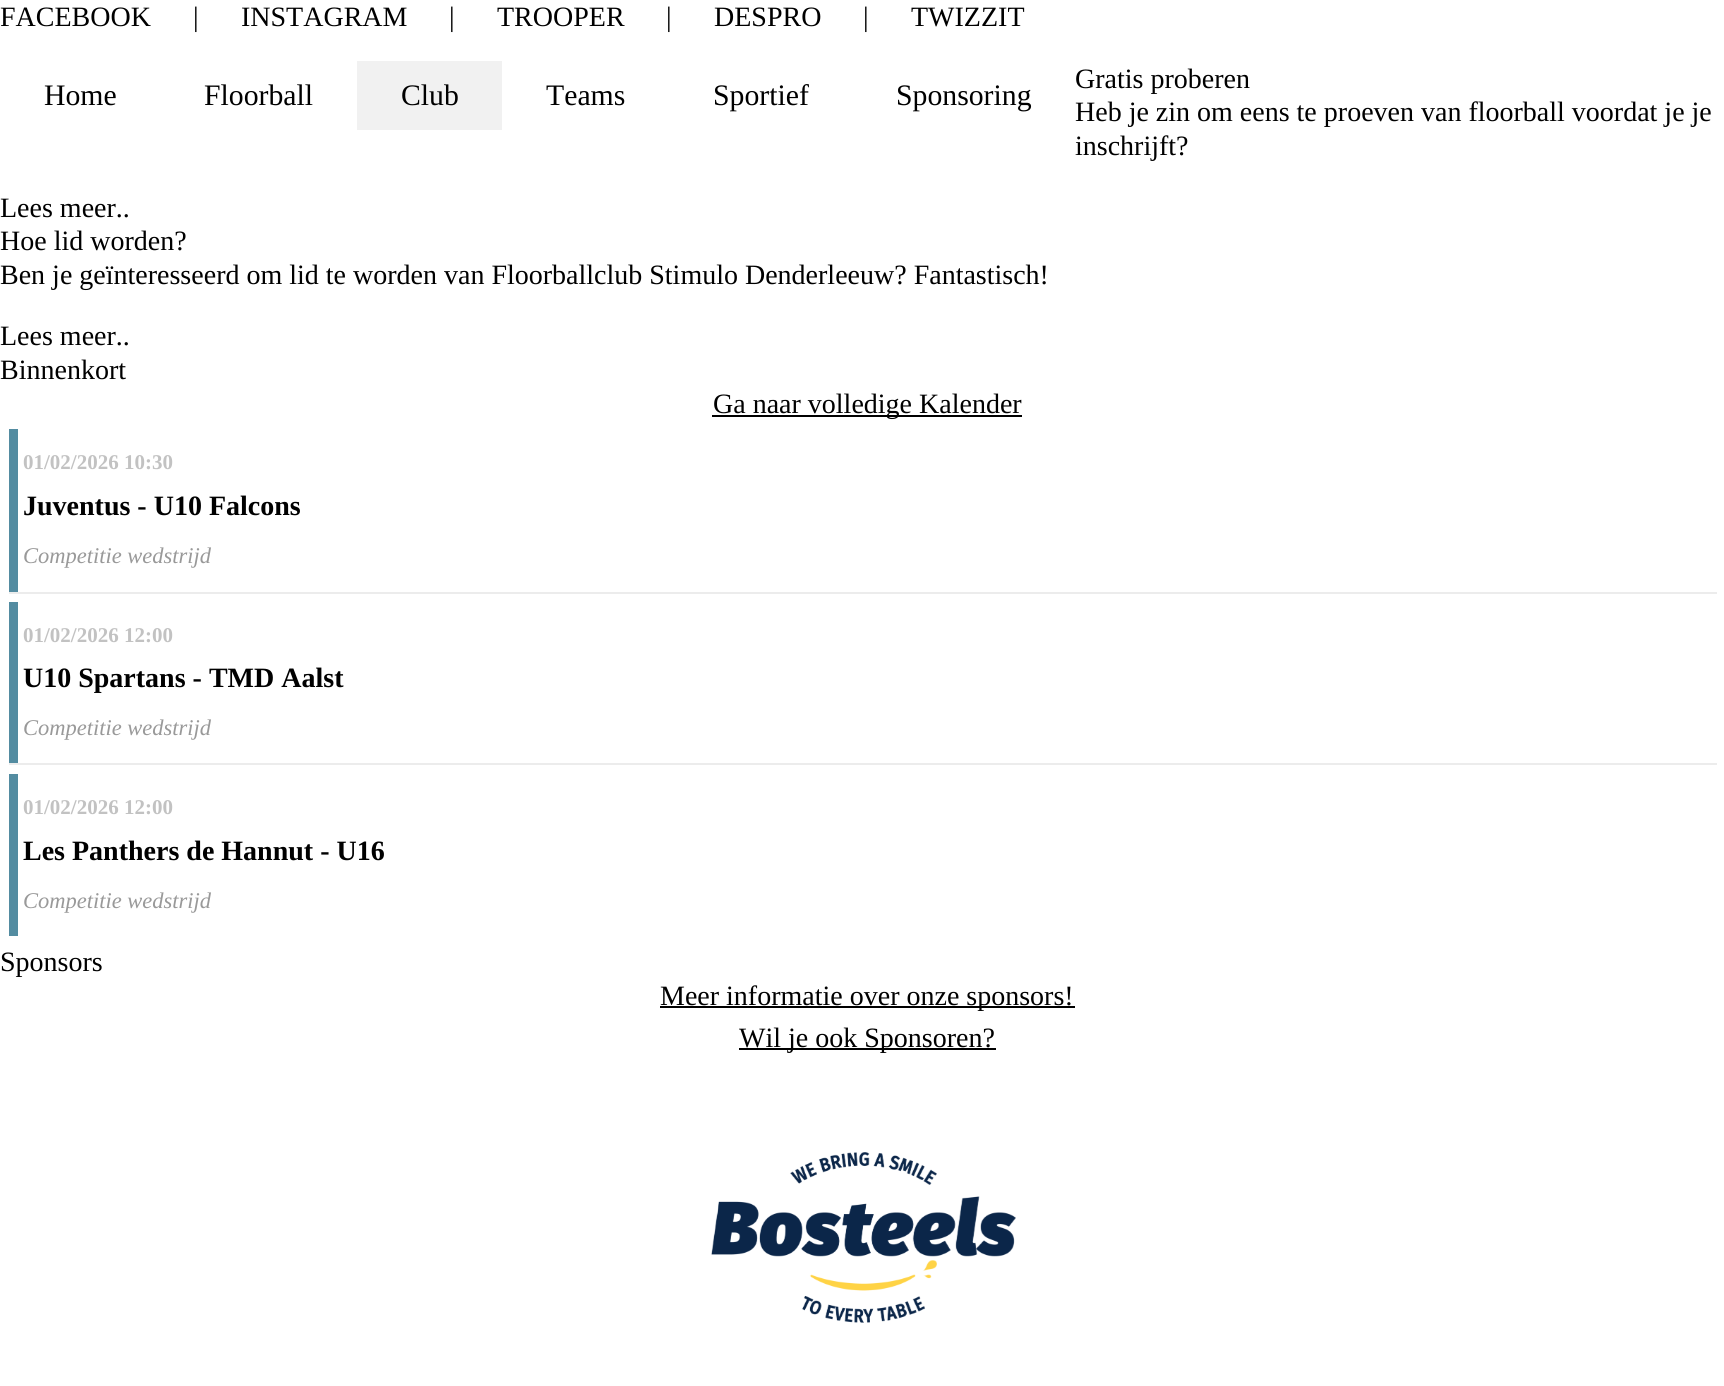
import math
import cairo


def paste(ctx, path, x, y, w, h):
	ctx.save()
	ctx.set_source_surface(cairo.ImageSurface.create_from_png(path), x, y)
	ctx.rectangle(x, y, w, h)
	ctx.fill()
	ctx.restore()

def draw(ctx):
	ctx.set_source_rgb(1, 1, 1)
	ctx.paint()
	ctx.select_font_face('Liberation Serif')
	ctx.set_font_size(28)
	ctx.set_source_rgb(0, 0, 0)
	for x, y, s in [
		(0, 26, 'FACEBOOK'),
		(193, 26, '|'),
		(241, 26, 'INSTAGRAM'),
		(449, 26, '|'),
		(497, 26, 'TROOPER'),
		(666, 26, '|'),
		(714, 26, 'DESPRO'),
		(863, 26, '|'),
		(911, 26, 'TWIZZIT'),
	]:
		ctx.move_to(x, y)
		ctx.show_text(s)
	ctx.set_font_size(29.75)
	ctx.move_to(44, 105)
	ctx.show_text('Home')
	ctx.move_to(204, 105)
	ctx.show_text('Floorball')
	ctx.set_source_rgb(0.945, 0.945, 0.945)
	ctx.rectangle(357, 61, 145, 69)
	ctx.fill()
	ctx.set_source_rgb(0, 0, 0)
	for x, y, s in [
		(401, 105, 'Club'),
		(546, 105, 'Teams'),
		(713, 105, 'Sportief'),
		(896, 105, 'Sponsoring'),
	]:
		ctx.move_to(x, y)
		ctx.show_text(s)
	ctx.set_font_size(28)
	for x, y, s in [
		(1075, 88, 'Gratis proberen'),
		(1075, 121, 'Heb je zin om eens te proeven van floorball voordat je je'),
		(1075, 155, 'inschrijft?'),
		(0, 217, 'Lees meer..'),
		(0, 250, 'Hoe lid worden?'),
		(0, 284, 'Ben je geïnteresseerd om lid te worden van Floorballclub Stimulo Denderleeuw? Fantastisch!'),
		(0, 345, 'Lees meer..'),
		(0, 379, 'Binnenkort'),
	]:
		ctx.move_to(x, y)
		ctx.show_text(s)
	ctx.rectangle(712, 415, 310, 2)
	ctx.fill()
	ctx.move_to(713, 413)
	ctx.show_text('Ga naar volledige Kalender')
	ctx.set_source_rgb(0.922, 0.922, 0.922)
	ctx.rectangle(9, 592, 1708, 2)
	ctx.fill()
	ctx.set_source_rgb(0.325, 0.549, 0.631)
	ctx.rectangle(9, 429, 9, 163)
	ctx.fill()
	ctx.select_font_face('Liberation Serif', cairo.FONT_SLANT_NORMAL, cairo.FONT_WEIGHT_BOLD)
	ctx.set_font_size(21)
	ctx.set_source_rgb(0.761, 0.761, 0.761)
	ctx.move_to(23, 469)
	ctx.show_text('01/02/2026 10:30')
	ctx.set_font_size(28)
	ctx.set_source_rgb(0, 0, 0)
	ctx.move_to(23, 515)
	ctx.show_text('Juventus - U10 Falcons')
	ctx.select_font_face('Liberation Serif', cairo.FONT_SLANT_ITALIC)
	ctx.set_font_size(22.5)
	ctx.set_source_rgb(0.6, 0.6, 0.6)
	ctx.move_to(23, 563)
	ctx.show_text('Competitie wedstrijd')
	ctx.set_source_rgb(0.922, 0.922, 0.922)
	ctx.rectangle(9, 763, 1708, 2)
	ctx.fill()
	ctx.set_source_rgb(0.325, 0.549, 0.631)
	ctx.rectangle(9, 602, 9, 161)
	ctx.fill()
	ctx.select_font_face('Liberation Serif', cairo.FONT_SLANT_NORMAL, cairo.FONT_WEIGHT_BOLD)
	ctx.set_font_size(21)
	ctx.set_source_rgb(0.761, 0.761, 0.761)
	ctx.move_to(23, 642)
	ctx.show_text('01/02/2026 12:00')
	ctx.set_font_size(28)
	ctx.set_source_rgb(0, 0, 0)
	ctx.move_to(23, 687)
	ctx.show_text('U10 Spartans - TMD Aalst')
	ctx.select_font_face('Liberation Serif', cairo.FONT_SLANT_ITALIC)
	ctx.set_font_size(22.5)
	ctx.set_source_rgb(0.6, 0.6, 0.6)
	ctx.move_to(23, 735)
	ctx.show_text('Competitie wedstrijd')
	ctx.set_source_rgb(0.325, 0.549, 0.631)
	ctx.rectangle(9, 774, 9, 162)
	ctx.fill()
	ctx.select_font_face('Liberation Serif', cairo.FONT_SLANT_NORMAL, cairo.FONT_WEIGHT_BOLD)
	ctx.set_font_size(21)
	ctx.set_source_rgb(0.761, 0.761, 0.761)
	ctx.move_to(23, 814)
	ctx.show_text('01/02/2026 12:00')
	ctx.set_font_size(28)
	ctx.set_source_rgb(0, 0, 0)
	ctx.move_to(23, 860)
	ctx.show_text('Les Panthers de Hannut - U16')
	ctx.select_font_face('Liberation Serif', cairo.FONT_SLANT_ITALIC)
	ctx.set_font_size(22.5)
	ctx.set_source_rgb(0.6, 0.6, 0.6)
	ctx.move_to(23, 908)
	ctx.show_text('Competitie wedstrijd')
	ctx.select_font_face('Liberation Serif')
	ctx.set_font_size(28)
	ctx.set_source_rgb(0, 0, 0)
	ctx.move_to(0, 971)
	ctx.show_text('Sponsors')
	ctx.rectangle(660, 1006, 415, 2)
	ctx.fill()
	ctx.move_to(660, 1005)
	ctx.show_text('Meer informatie over onze sponsors!')
	ctx.rectangle(739, 1048, 257, 2)
	ctx.fill()
	ctx.move_to(739, 1047)
	ctx.show_text('Wil je ook Sponsoren?')
	paste(ctx, 'media/1.png', 711, 1152, 305, 171)


surface = cairo.ImageSurface(cairo.FORMAT_RGB24, 1724, 1386)
ctx = cairo.Context(surface)
options = cairo.FontOptions()
options.set_hint_metrics(cairo.HINT_METRICS_OFF)
options.set_hint_style(cairo.HINT_STYLE_NONE)
ctx.set_font_options(options)
ctx.set_miter_limit(4)
draw(ctx)
surface.write_to_png('image.png')
